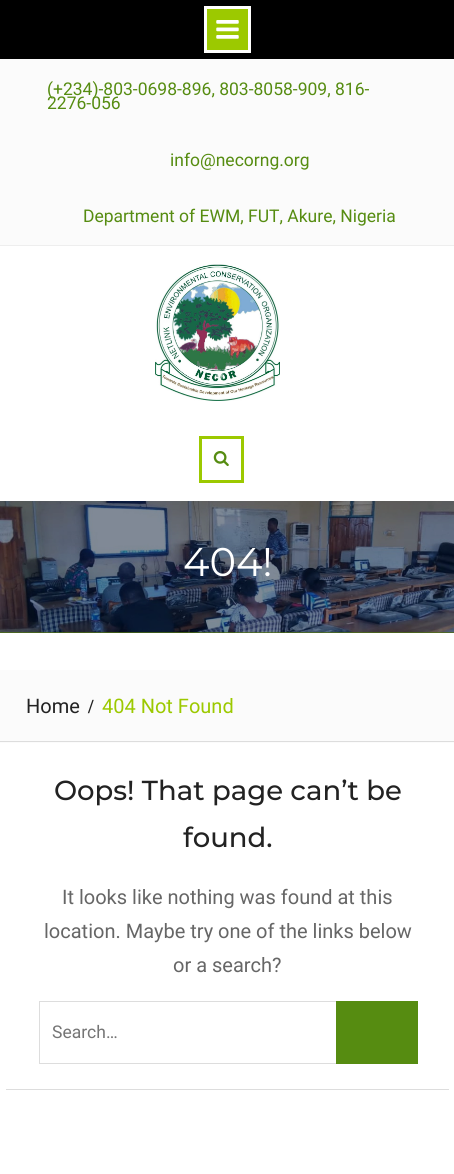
import math
import cairo


def paste(ctx, path, x, y, w, h):
	ctx.save()
	ctx.set_source_surface(cairo.ImageSurface.create_from_png(path), x, y)
	ctx.rectangle(x, y, w, h)
	ctx.fill()
	ctx.restore()

def draw(ctx):
	ctx.set_source_rgb(1, 1, 1)
	ctx.paint()
	ctx.set_source_rgb(0, 0, 0)
	ctx.rectangle(0, 0, 454, 59)
	ctx.fill()
	ctx.set_source_rgb(0.612, 0.788, 0)
	ctx.rectangle(205.5, 7.5, 44, 44)
	ctx.fill_preserve()
	ctx.set_source_rgb(1, 1, 0.996)
	ctx.set_line_width(3)
	ctx.stroke()
	paste(ctx, 'media/1.png', 216, 20, 23, 19)
	ctx.set_source_rgb(0.984, 0.984, 0.984)
	ctx.rectangle(0, 59, 454, 186)
	ctx.fill()
	ctx.set_source_rgb(0.933, 0.933, 0.933)
	ctx.rectangle(0, 245, 454, 1)
	ctx.fill()
	ctx.select_font_face('Roboto')
	ctx.set_font_size(17.5)
	ctx.set_source_rgb(0.337, 0.549, 0.067)
	for x, y, s in [
		(47, 95, '(+234)-803-0698-896, 803-8058-909, 816-'),
		(47, 109, '2276-056'),
		(170, 166, 'info@necorng.org'),
		(83, 222, 'Department of EWM, FUT, Akure, Nigeria'),
	]:
		ctx.move_to(x, y)
		ctx.show_text(s)
	paste(ctx, 'media/2.png', 155, 264, 125, 137)
	ctx.rectangle(200.5, 437.5, 42, 44)
	ctx.set_source_rgb(0.612, 0.788, 0)
	ctx.stroke()
	paste(ctx, 'media/3.png', 213, 451, 16, 16)
	ctx.set_source_rgb(0.306, 0.431, 0.086)
	ctx.rectangle(0, 632, 454, 1)
	ctx.fill()
	paste(ctx, 'media/4.png', 0, 501, 454, 132)
	ctx.select_font_face('Montserrat')
	ctx.set_font_size(40)
	ctx.set_source_rgb(1, 1, 1)
	ctx.move_to(183, 576)
	ctx.show_text('404!')
	ctx.set_source_rgb(0.984, 0.984, 0.984)
	ctx.rectangle(0, 670, 454, 73)
	ctx.fill()
	ctx.set_source_rgb(0.867, 0.867, 0.867)
	ctx.rectangle(0, 741, 454, 1)
	ctx.fill()
	ctx.select_font_face('Roboto')
	ctx.set_font_size(20)
	ctx.set_source_rgb(0.133, 0.133, 0.133)
	ctx.move_to(26, 713)
	ctx.show_text('Home')
	ctx.select_font_face('Liberation Serif', cairo.FONT_SLANT_NORMAL, cairo.FONT_WEIGHT_BOLD)
	ctx.move_to(88, 713)
	ctx.show_text('/')
	ctx.select_font_face('Roboto')
	ctx.set_source_rgb(0.612, 0.788, 0)
	ctx.move_to(102, 713)
	ctx.show_text('404 Not Found')
	ctx.set_source_rgb(0.867, 0.867, 0.867)
	ctx.rectangle(6, 1089, 443, 1)
	ctx.fill()
	ctx.select_font_face('Montserrat Medium')
	ctx.set_font_size(27.5)
	ctx.set_source_rgb(0.133, 0.133, 0.133)
	ctx.move_to(54, 800)
	ctx.show_text('Oops! That page can’t be')
	ctx.move_to(183, 847)
	ctx.show_text('found.')
	ctx.select_font_face('Roboto')
	ctx.set_font_size(20)
	ctx.set_source_rgb(0.4, 0.4, 0.4)
	for x, y, s in [
		(62, 904, 'It looks like nothing was found at this'),
		(44, 938, 'location. Maybe try one of the links below'),
		(173, 972, 'or a search?'),
	]:
		ctx.move_to(x, y)
		ctx.show_text(s)
	ctx.rectangle(39.5, 1001.5, 376, 62)
	ctx.set_source_rgb(0.867, 0.867, 0.867)
	ctx.set_line_width(1)
	ctx.stroke()
	ctx.set_font_size(17.5)
	ctx.set_source_rgb(0.459, 0.459, 0.459)
	ctx.move_to(52, 1038)
	ctx.show_text('Search…')
	ctx.set_source_rgb(0.337, 0.549, 0.067)
	ctx.rectangle(336, 1001, 82, 63)
	ctx.fill()


surface = cairo.ImageSurface(cairo.FORMAT_RGB24, 454, 1174)
ctx = cairo.Context(surface)
options = cairo.FontOptions()
options.set_hint_metrics(cairo.HINT_METRICS_OFF)
options.set_hint_style(cairo.HINT_STYLE_NONE)
ctx.set_font_options(options)
ctx.set_miter_limit(4)
draw(ctx)
surface.write_to_png('image.png')
